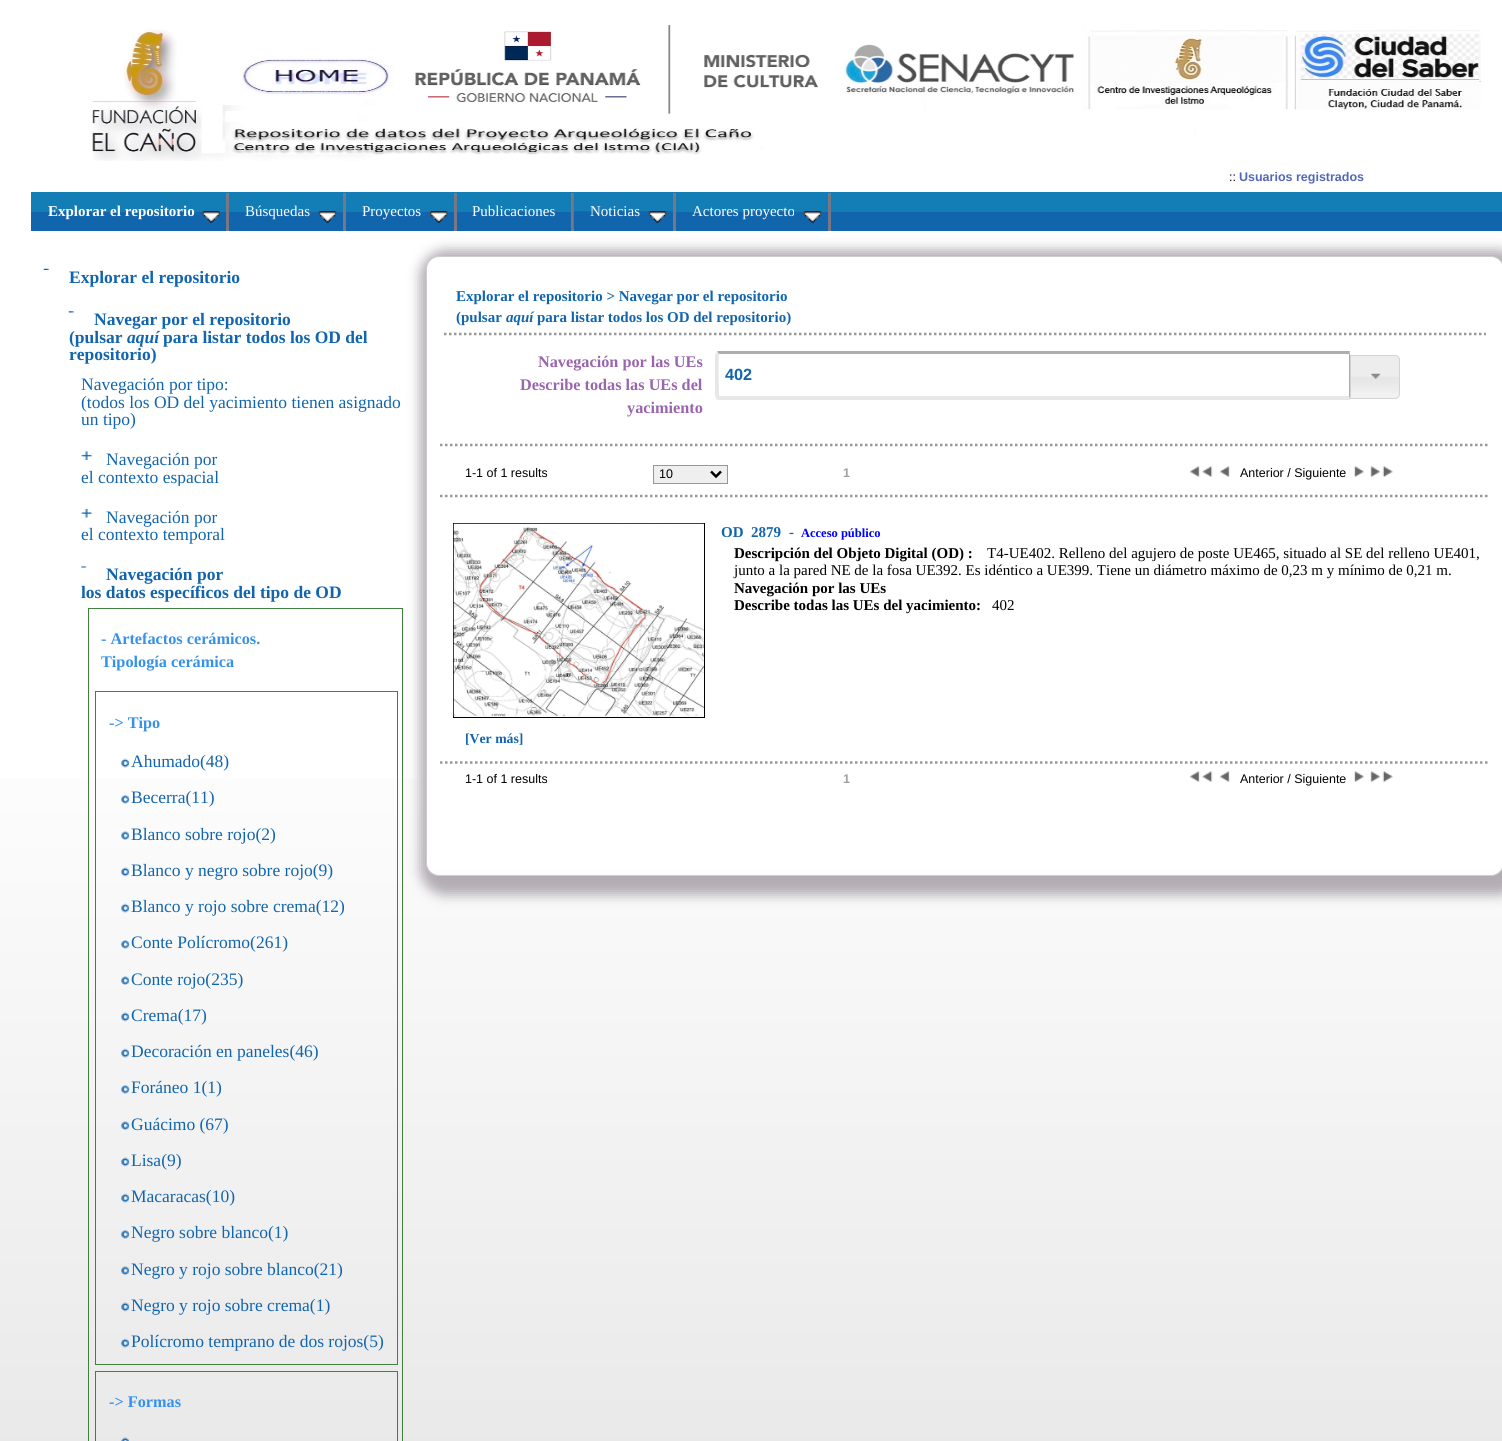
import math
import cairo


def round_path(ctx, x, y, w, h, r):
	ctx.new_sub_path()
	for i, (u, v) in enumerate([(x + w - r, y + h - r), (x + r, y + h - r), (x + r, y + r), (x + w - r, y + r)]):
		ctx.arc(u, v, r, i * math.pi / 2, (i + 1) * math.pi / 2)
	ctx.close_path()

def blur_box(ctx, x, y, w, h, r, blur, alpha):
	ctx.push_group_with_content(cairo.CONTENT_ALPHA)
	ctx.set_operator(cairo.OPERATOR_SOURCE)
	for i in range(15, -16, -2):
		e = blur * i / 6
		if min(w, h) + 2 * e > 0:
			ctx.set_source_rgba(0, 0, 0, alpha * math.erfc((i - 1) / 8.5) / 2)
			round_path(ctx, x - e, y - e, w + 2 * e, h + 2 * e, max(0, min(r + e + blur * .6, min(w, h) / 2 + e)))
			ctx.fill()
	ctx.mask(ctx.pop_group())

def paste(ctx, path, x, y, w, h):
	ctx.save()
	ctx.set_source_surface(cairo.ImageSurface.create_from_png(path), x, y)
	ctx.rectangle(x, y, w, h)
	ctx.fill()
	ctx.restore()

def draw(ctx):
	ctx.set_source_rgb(1, 1, 1)
	ctx.paint()
	gradient = cairo.LinearGradient(751, 0, 751, 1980)
	gradient.add_color_stop_rgba(0.35, 1, 1, 1, 1)
	gradient.add_color_stop_rgba(0.75, 0.91, 0.91, 0.91, 1)
	ctx.set_source(gradient)
	ctx.rectangle(0, 779, 1502, 662)
	ctx.fill()
	paste(ctx, 'media/1.png', 92, 25, 1389, 136)
	ctx.select_font_face('Liberation Sans')
	ctx.set_font_size(12.5)
	ctx.set_source_rgb(0, 0, 0)
	ctx.move_to(1229, 181)
	ctx.show_text('::')
	ctx.select_font_face('Liberation Sans', cairo.FONT_SLANT_NORMAL, cairo.FONT_WEIGHT_BOLD)
	ctx.set_source_rgb(0.318, 0.408, 0.722)
	ctx.move_to(1239, 181)
	ctx.show_text('Usuarios registrados')
	ctx.set_source_rgb(0.067, 0.396, 0.678)
	ctx.rectangle(831, 212, 671, 19)
	ctx.fill()
	ctx.set_source_rgb(0.078, 0.49, 0.714)
	ctx.rectangle(31, 192, 1471, 20)
	ctx.fill()
	ctx.set_source_rgb(0.067, 0.396, 0.678)
	ctx.rectangle(31, 212, 195, 19)
	ctx.fill()
	ctx.set_source_rgb(0.467, 0.467, 0.533)
	ctx.rectangle(226, 193, 3, 38)
	ctx.fill()
	ctx.select_font_face('Liberation Serif', cairo.FONT_SLANT_NORMAL, cairo.FONT_WEIGHT_BOLD)
	ctx.set_font_size(15)
	ctx.set_source_rgb(1, 1, 1)
	ctx.move_to(48, 216)
	ctx.show_text('Explorar el repositorio')
	paste(ctx, 'media/2.png', 202, 211, 18, 12)
	ctx.set_source_rgb(0.067, 0.396, 0.678)
	ctx.rectangle(229, 212, 114, 19)
	ctx.fill()
	ctx.set_source_rgb(0.467, 0.467, 0.533)
	ctx.rectangle(343, 193, 3, 38)
	ctx.fill()
	ctx.select_font_face('Liberation Serif')
	ctx.set_source_rgb(1, 1, 1)
	ctx.move_to(245, 216)
	ctx.show_text('Búsquedas')
	paste(ctx, 'media/3.png', 318, 211, 19, 12)
	ctx.set_source_rgb(0.067, 0.396, 0.678)
	ctx.rectangle(346, 212, 108, 19)
	ctx.fill()
	ctx.set_source_rgb(0.467, 0.467, 0.533)
	ctx.rectangle(454, 193, 3, 38)
	ctx.fill()
	ctx.set_source_rgb(1, 1, 1)
	ctx.move_to(362, 216)
	ctx.show_text('Proyectos')
	paste(ctx, 'media/4.png', 430, 211, 18, 12)
	ctx.set_source_rgb(0.067, 0.396, 0.678)
	ctx.rectangle(457, 212, 114, 19)
	ctx.fill()
	ctx.set_source_rgb(0.467, 0.467, 0.533)
	ctx.rectangle(571, 193, 3, 38)
	ctx.fill()
	ctx.set_source_rgb(1, 1, 1)
	ctx.move_to(472, 216)
	ctx.show_text('Publicaciones')
	ctx.set_source_rgb(0.067, 0.396, 0.678)
	ctx.rectangle(574, 228, 99, 3)
	ctx.fill()
	paste(ctx, 'media/5.png', 573, 193, 100, 36)
	ctx.set_source_rgb(0.467, 0.467, 0.533)
	ctx.rectangle(673, 193, 3, 38)
	ctx.fill()
	ctx.set_source_rgb(1, 1, 1)
	ctx.move_to(590, 216)
	ctx.show_text('Noticias')
	paste(ctx, 'media/6.png', 648, 211, 19, 12)
	ctx.set_source_rgb(0.067, 0.396, 0.678)
	ctx.rectangle(676, 212, 152, 19)
	ctx.fill()
	ctx.set_source_rgb(0.467, 0.467, 0.533)
	ctx.rectangle(828, 193, 3, 38)
	ctx.fill()
	ctx.set_source_rgb(1, 1, 1)
	ctx.move_to(692, 216)
	ctx.show_text('Actores proyecto')
	paste(ctx, 'media/7.png', 803, 211, 19, 12)
	paste(ctx, 'media/8.png', 43, 268, 6, 2)
	ctx.select_font_face('Liberation Serif', cairo.FONT_SLANT_NORMAL, cairo.FONT_WEIGHT_BOLD)
	ctx.set_font_size(17.5)
	ctx.set_source_rgb(0.067, 0.396, 0.682)
	ctx.move_to(69, 283)
	ctx.show_text('Explorar el repositorio')
	paste(ctx, 'media/9.png', 68, 311, 6, 2)
	ctx.move_to(94, 325)
	ctx.show_text('Navegar por el repositorio')
	ctx.move_to(69, 343)
	ctx.show_text('(pulsar')
	ctx.select_font_face('Liberation Serif', cairo.FONT_SLANT_ITALIC, cairo.FONT_WEIGHT_BOLD)
	ctx.move_to(127, 343)
	ctx.show_text('aquí')
	ctx.select_font_face('Liberation Serif', cairo.FONT_SLANT_NORMAL, cairo.FONT_WEIGHT_BOLD)
	ctx.move_to(163, 343)
	ctx.show_text('para listar todos los OD del')
	ctx.move_to(69, 360)
	ctx.show_text('repositorio)')
	ctx.select_font_face('Liberation Serif')
	for x, y, s in [
		(81, 390, 'Navegación por tipo:'),
		(81, 408, '(todos los OD del yacimiento tienen asignado'),
		(81, 425, 'un tipo)'),
	]:
		ctx.move_to(x, y)
		ctx.show_text(s)
	paste(ctx, 'media/10.png', 81, 451, 12, 9)
	ctx.move_to(106, 465)
	ctx.show_text('Navegación por')
	ctx.save()
	ctx.rectangle(81, 451, 325, 35)
	ctx.clip()
	ctx.move_to(81, 483)
	ctx.show_text('el contexto espacial')
	ctx.restore()
	paste(ctx, 'media/11.png', 81, 508, 12, 10)
	ctx.move_to(106, 523)
	ctx.show_text('Navegación por')
	ctx.move_to(81, 540)
	ctx.show_text('el contexto temporal')
	paste(ctx, 'media/12.png', 81, 566, 6, 2)
	ctx.select_font_face('Liberation Serif', cairo.FONT_SLANT_NORMAL, cairo.FONT_WEIGHT_BOLD)
	ctx.move_to(106, 580)
	ctx.show_text('Navegación por')
	ctx.move_to(81, 598)
	ctx.show_text('los datos específicos del tipo de OD')
	ctx.set_source_rgb(0.698, 0.675, 0.702)
	blur_box(ctx, 420, 250, 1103, 645, 25, 6, 1)
	ctx.rectangle(88.5, 608.5, 314, 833)
	ctx.set_source_rgb(0.263, 0.502, 0.251)
	ctx.set_line_width(1)
	ctx.stroke()
	ctx.set_font_size(16.25)
	ctx.set_source_rgb(0.212, 0.573, 0.914)
	ctx.move_to(101, 644)
	ctx.show_text('- Artefactos cerámicos.')
	ctx.move_to(101, 667)
	ctx.show_text('Tipología cerámica')
	ctx.rectangle(95.5, 691.5, 302, 673)
	ctx.set_source_rgb(0.263, 0.502, 0.251)
	ctx.stroke()
	ctx.set_source_rgb(0.212, 0.573, 0.914)
	ctx.move_to(109, 728)
	ctx.show_text('-> Tipo')
	paste(ctx, 'media/13.png', 121, 758, 9, 10)
	ctx.select_font_face('Liberation Serif')
	ctx.set_font_size(17.5)
	ctx.set_source_rgb(0.067, 0.396, 0.682)
	ctx.move_to(131, 767)
	ctx.show_text('Ahumado(48)')
	paste(ctx, 'media/14.png', 121, 795, 9, 9)
	ctx.move_to(131, 803)
	ctx.show_text('Becerra(11)')
	paste(ctx, 'media/15.png', 121, 831, 9, 9)
	ctx.move_to(131, 840)
	ctx.show_text('Blanco sobre rojo(2)')
	paste(ctx, 'media/16.png', 121, 867, 9, 10)
	ctx.move_to(131, 876)
	ctx.show_text('Blanco y negro sobre rojo(9)')
	paste(ctx, 'media/17.png', 121, 903, 9, 10)
	ctx.move_to(131, 912)
	ctx.show_text('Blanco y rojo sobre crema(12)')
	paste(ctx, 'media/18.png', 121, 940, 9, 9)
	ctx.move_to(131, 948)
	ctx.show_text('Conte Polícromo(261)')
	paste(ctx, 'media/19.png', 121, 976, 9, 9)
	ctx.move_to(131, 985)
	ctx.show_text('Conte rojo(235)')
	paste(ctx, 'media/20.png', 121, 1012, 9, 10)
	ctx.move_to(131, 1021)
	ctx.show_text('Crema(17)')
	paste(ctx, 'media/21.png', 121, 1048, 9, 10)
	ctx.move_to(131, 1057)
	ctx.show_text('Decoración en paneles(46)')
	paste(ctx, 'media/22.png', 121, 1085, 9, 9)
	ctx.move_to(131, 1093)
	ctx.show_text('Foráneo 1(1)')
	paste(ctx, 'media/23.png', 121, 1121, 9, 9)
	ctx.move_to(131, 1130)
	ctx.show_text('Guácimo (67)')
	paste(ctx, 'media/24.png', 121, 1157, 9, 10)
	ctx.move_to(131, 1166)
	ctx.show_text('Lisa(9)')
	paste(ctx, 'media/25.png', 121, 1193, 9, 10)
	ctx.move_to(131, 1202)
	ctx.show_text('Macaracas(10)')
	paste(ctx, 'media/26.png', 121, 1230, 9, 9)
	ctx.move_to(131, 1238)
	ctx.show_text('Negro sobre blanco(1)')
	paste(ctx, 'media/27.png', 121, 1266, 9, 9)
	ctx.move_to(131, 1275)
	ctx.show_text('Negro y rojo sobre blanco(21)')
	paste(ctx, 'media/28.png', 121, 1302, 9, 10)
	ctx.move_to(131, 1311)
	ctx.show_text('Negro y rojo sobre crema(1)')
	paste(ctx, 'media/29.png', 121, 1338, 9, 10)
	ctx.move_to(131, 1347)
	ctx.show_text('Polícromo temprano de dos rojos(5)')
	ctx.rectangle(95.5, 1371.5, 302, 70)
	ctx.set_source_rgb(0.263, 0.502, 0.251)
	ctx.stroke()
	ctx.select_font_face('Liberation Serif', cairo.FONT_SLANT_NORMAL, cairo.FONT_WEIGHT_BOLD)
	ctx.set_font_size(16.25)
	ctx.set_source_rgb(0.212, 0.573, 0.914)
	ctx.move_to(109, 1407)
	ctx.show_text('-> Formas')
	paste(ctx, 'media/30.png', 121, 1437, 8, 4)
	ctx.set_source_rgb(1, 1, 1)
	round_path(ctx, 426.5, 256.5, 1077, 619, 12.5)
	ctx.fill_preserve()
	ctx.set_source_rgb(0.8, 0.8, 0.8)
	ctx.stroke()
	ctx.new_path()
	ctx.move_to(444, 334)
	ctx.line_to(1486, 334)
	ctx.set_source_rgb(0.6, 0.6, 0.6)
	ctx.set_line_width(2.5)
	ctx.set_dash([2.5, 2.5])
	ctx.stroke()
	ctx.set_font_size(15)
	ctx.set_source_rgb(0.067, 0.396, 0.682)
	ctx.move_to(456, 301)
	ctx.show_text('Explorar el repositorio > Navegar por el repositorio')
	ctx.move_to(456, 322)
	ctx.show_text('(pulsar')
	ctx.select_font_face('Liberation Serif', cairo.FONT_SLANT_ITALIC, cairo.FONT_WEIGHT_BOLD)
	ctx.move_to(506, 322)
	ctx.show_text('aquí')
	ctx.select_font_face('Liberation Serif', cairo.FONT_SLANT_NORMAL, cairo.FONT_WEIGHT_BOLD)
	ctx.move_to(537, 322)
	ctx.show_text('para listar todos los OD del repositorio)')
	ctx.new_path()
	ctx.move_to(440, 445)
	ctx.line_to(1490, 445)
	ctx.set_source_rgb(0.6, 0.6, 0.6)
	ctx.stroke()
	ctx.set_font_size(16.25)
	ctx.set_source_rgb(0.6, 0.396, 0.682)
	for x, y, s in [
		(538, 367, 'Navegación por las UEs'),
		(520, 390, 'Describe todas las UEs del'),
		(627, 413, 'yacimiento'),
	]:
		ctx.move_to(x, y)
		ctx.show_text(s)
	ctx.set_source_rgb(0.678, 0.678, 0.678)
	ctx.new_path()
	ctx.move_to(720, 354)
	ctx.line_to(719, 354)
	ctx.line_to(717, 352)
	ctx.line_to(718, 351)
	ctx.line_to(1350, 351)
	ctx.line_to(1349, 354)
	ctx.close_path()
	ctx.fill()
	ctx.set_source_rgb(0.667, 0.667, 0.667)
	ctx.new_path()
	ctx.move_to(1350, 351)
	ctx.line_to(1349, 354)
	ctx.line_to(1349, 396)
	ctx.line_to(1350, 400)
	ctx.close_path()
	ctx.fill()
	ctx.set_source_rgb(0.906, 0.906, 0.906)
	ctx.new_path()
	ctx.move_to(1350, 400)
	ctx.line_to(1349, 396)
	ctx.line_to(720, 396)
	ctx.line_to(716, 399)
	ctx.curve_to(717, 400, 718, 400, 720, 400)
	ctx.close_path()
	ctx.fill()
	ctx.new_path()
	ctx.move_to(715, 356)
	ctx.line_to(715, 395)
	ctx.curve_to(715, 396, 716, 398, 716, 399)
	ctx.line_to(720, 396)
	ctx.line_to(719, 395)
	ctx.curve_to(719, 390, 718, 356, 719, 354)
	ctx.line_to(717, 352)
	ctx.curve_to(716, 353, 715, 354, 715, 356)
	ctx.close_path()
	ctx.fill()
	ctx.select_font_face('Liberation Sans', cairo.FONT_SLANT_NORMAL, cairo.FONT_WEIGHT_BOLD)
	ctx.set_source_rgb(0.067, 0.396, 0.682)
	ctx.move_to(725, 380)
	ctx.show_text('402')
	paste(ctx, 'media/31.png', 1351, 355, 49, 44)
	ctx.new_path()
	ctx.move_to(1350.5, 355.5)
	ctx.line_to(1395, 355.5)
	ctx.curve_to(1397.5, 355.5, 1399.5, 357.5, 1399.5, 360)
	ctx.line_to(1399.5, 394)
	ctx.curve_to(1399.5, 396.5, 1397.5, 398.5, 1395, 398.5)
	ctx.line_to(1350.5, 398.5)
	ctx.close_path()
	ctx.set_source_rgb(0.827, 0.827, 0.827)
	ctx.set_line_width(1)
	ctx.set_dash([])
	ctx.stroke()
	paste(ctx, 'media/32.png', 1371, 373, 10, 6)
	ctx.new_path()
	ctx.move_to(440, 496)
	ctx.line_to(1490, 496)
	ctx.set_source_rgb(0.6, 0.6, 0.6)
	ctx.set_line_width(2.5)
	ctx.set_dash([2.5, 2.5])
	ctx.stroke()
	ctx.select_font_face('Liberation Sans')
	ctx.set_font_size(12.5)
	ctx.set_source_rgb(0, 0, 0)
	ctx.move_to(465, 477)
	ctx.show_text('1-1 of 1 results')
	ctx.set_source_rgb(0.937, 0.937, 0.937)
	ctx.rectangle(653.5, 465.5, 74, 18)
	ctx.fill_preserve()
	ctx.set_source_rgb(0.498, 0.616, 0.725)
	ctx.set_line_width(1)
	ctx.set_dash([])
	ctx.stroke()
	ctx.new_path()
	ctx.move_to(711, 471.5)
	ctx.line_to(716, 476.5)
	ctx.line_to(721, 471.5)
	ctx.set_source_rgb(0, 0, 0)
	ctx.set_line_width(2.5)
	ctx.stroke()
	ctx.move_to(659, 478)
	ctx.show_text('10')
	ctx.select_font_face('Liberation Sans', cairo.FONT_SLANT_NORMAL, cairo.FONT_WEIGHT_BOLD)
	ctx.set_source_rgb(0.624, 0.624, 0.624)
	ctx.move_to(843, 477)
	ctx.show_text('1')
	paste(ctx, 'media/33.png', 1190, 466, 23, 12)
	paste(ctx, 'media/34.png', 1220, 466, 10, 12)
	ctx.select_font_face('Liberation Sans')
	ctx.set_source_rgb(0, 0, 0)
	ctx.move_to(1240, 477)
	ctx.show_text('Anterior / Siguiente')
	paste(ctx, 'media/35.png', 1353, 466, 11, 12)
	paste(ctx, 'media/36.png', 1370, 466, 23, 12)
	ctx.new_path()
	ctx.move_to(440, 762.5)
	ctx.line_to(1490, 762.5)
	ctx.set_source_rgb(0.6, 0.6, 0.6)
	ctx.set_dash([2.5, 2.5])
	ctx.stroke()
	ctx.rectangle(453.5, 523.5, 251, 194)
	ctx.set_source_rgb(0, 0, 0)
	ctx.set_line_width(1)
	ctx.set_dash([])
	ctx.stroke()
	paste(ctx, 'media/37.png', 453, 523, 251, 194)
	ctx.select_font_face('Liberation Serif', cairo.FONT_SLANT_NORMAL, cairo.FONT_WEIGHT_BOLD)
	ctx.set_font_size(15)
	ctx.set_source_rgb(0.067, 0.396, 0.682)
	for x, y, s in [
		(721, 537, 'OD'),
		(751, 537, '2879'),
		(789, 537, '-'),
	]:
		ctx.move_to(x, y)
		ctx.show_text(s)
	ctx.set_font_size(12.5)
	ctx.set_source_rgb(0, 0, 1)
	ctx.move_to(801, 537)
	ctx.show_text('Acceso público')
	ctx.set_font_size(15)
	ctx.set_source_rgb(0, 0, 0)
	ctx.move_to(734, 558)
	ctx.show_text('Descripción del Objeto Digital (OD) :')
	ctx.select_font_face('Liberation Serif')
	ctx.move_to(987, 558)
	ctx.show_text('T4-UE402. Relleno del agujero de poste UE465, situado al SE del relleno UE401,')
	ctx.move_to(734, 575)
	ctx.show_text('junto a la pared NE de la fosa UE392. Es idéntico a UE399. Tiene un diámetro máximo de 0,23 m y mínimo de 0,21 m.')
	ctx.select_font_face('Liberation Serif', cairo.FONT_SLANT_NORMAL, cairo.FONT_WEIGHT_BOLD)
	ctx.move_to(734, 593)
	ctx.show_text('Navegación por las UEs')
	ctx.move_to(734, 610)
	ctx.show_text('Describe todas las UEs del yacimiento:')
	ctx.select_font_face('Liberation Serif')
	ctx.move_to(992, 610)
	ctx.show_text('402')
	ctx.select_font_face('Liberation Serif', cairo.FONT_SLANT_NORMAL, cairo.FONT_WEIGHT_BOLD)
	ctx.set_font_size(13.75)
	ctx.set_source_rgb(0.067, 0.396, 0.682)
	ctx.move_to(465, 743)
	ctx.show_text('[Ver más]')
	ctx.select_font_face('Liberation Sans')
	ctx.set_font_size(12.5)
	ctx.set_source_rgb(0, 0, 0)
	ctx.move_to(465, 783)
	ctx.show_text('1-1 of 1 results')
	ctx.select_font_face('Liberation Sans', cairo.FONT_SLANT_NORMAL, cairo.FONT_WEIGHT_BOLD)
	ctx.set_source_rgb(0.624, 0.624, 0.624)
	ctx.move_to(843, 783)
	ctx.show_text('1')
	paste(ctx, 'media/33.png', 1190, 771, 23, 12)
	paste(ctx, 'media/34.png', 1220, 771, 10, 12)
	ctx.select_font_face('Liberation Sans')
	ctx.set_source_rgb(0, 0, 0)
	ctx.move_to(1240, 783)
	ctx.show_text('Anterior / Siguiente')
	paste(ctx, 'media/35.png', 1353, 771, 11, 12)
	paste(ctx, 'media/36.png', 1370, 771, 23, 12)


surface = cairo.ImageSurface(cairo.FORMAT_RGB24, 1502, 1441)
ctx = cairo.Context(surface)
options = cairo.FontOptions()
options.set_hint_metrics(cairo.HINT_METRICS_OFF)
options.set_hint_style(cairo.HINT_STYLE_NONE)
ctx.set_font_options(options)
ctx.set_miter_limit(4)
draw(ctx)
surface.write_to_png('image.png')
